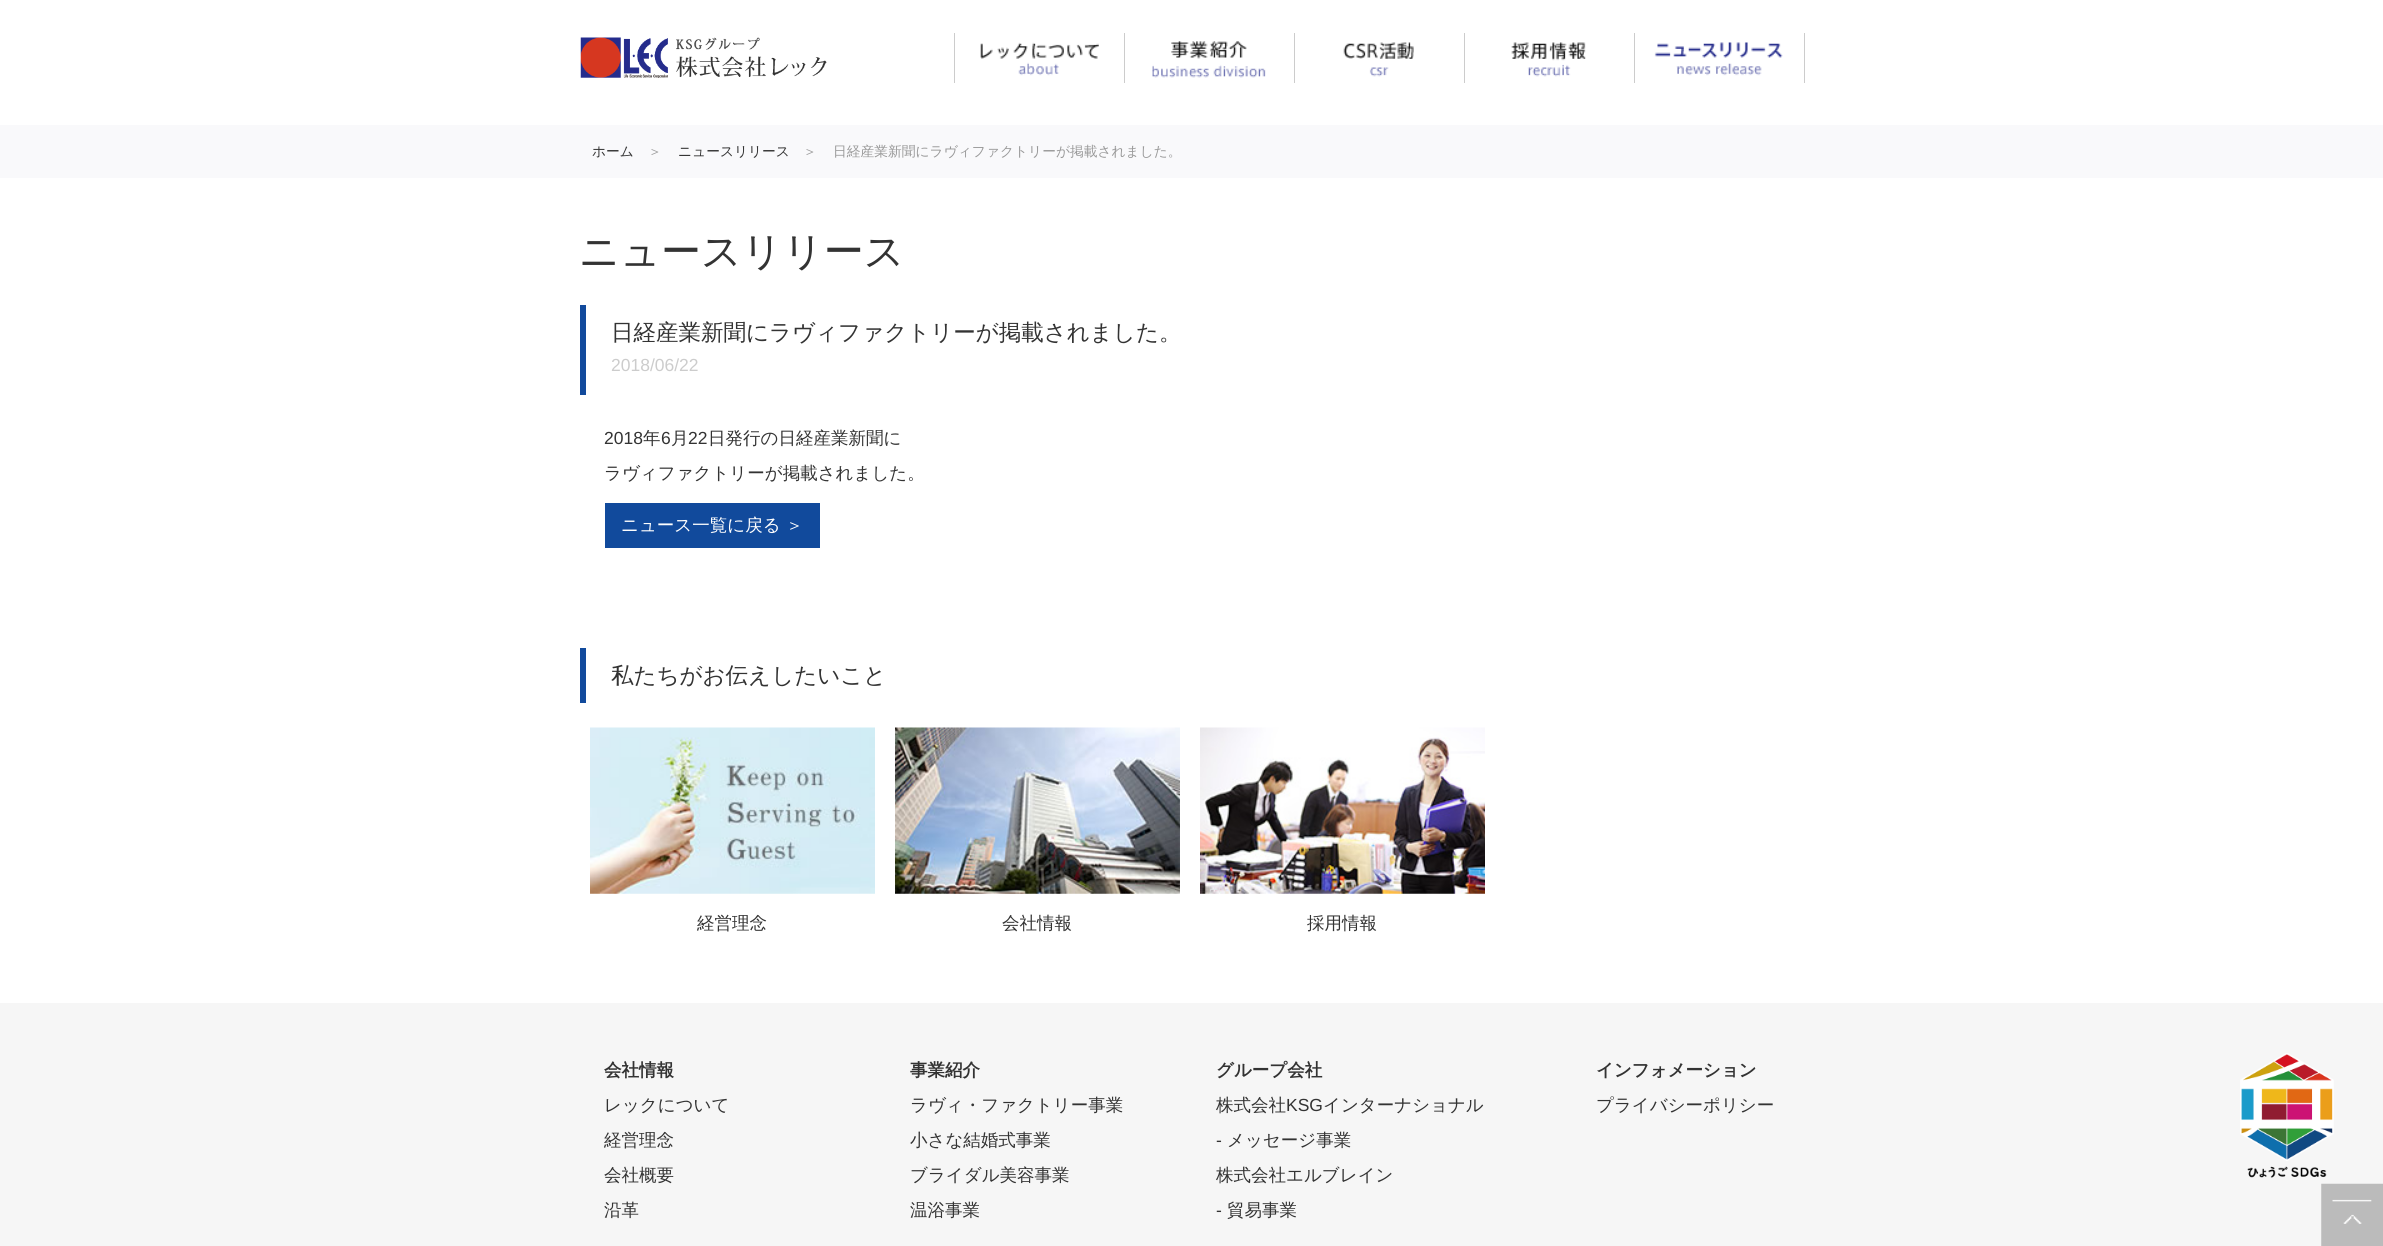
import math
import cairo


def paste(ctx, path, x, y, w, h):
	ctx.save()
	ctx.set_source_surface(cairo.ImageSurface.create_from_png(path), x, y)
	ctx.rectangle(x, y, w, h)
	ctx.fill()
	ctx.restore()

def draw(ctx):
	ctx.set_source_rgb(1, 1, 1)
	ctx.paint()
	paste(ctx, 'media/1.png', 580, 37, 247, 41)
	ctx.set_source_rgb(0.8, 0.8, 0.8)
	ctx.rectangle(954, 33, 1, 50)
	ctx.fill()
	ctx.rectangle(1124, 33, 1, 50)
	ctx.fill()
	paste(ctx, 'media/2.png', 980, 42, 119, 34)
	ctx.rectangle(1294, 33, 1, 50)
	ctx.fill()
	paste(ctx, 'media/3.png', 1152, 41, 114, 37)
	ctx.rectangle(1464, 33, 1, 50)
	ctx.fill()
	paste(ctx, 'media/4.png', 1343, 42, 71, 35)
	ctx.rectangle(1634, 33, 1, 50)
	ctx.fill()
	paste(ctx, 'media/5.png', 1511, 42, 75, 35)
	ctx.rectangle(1804, 33, 1, 50)
	ctx.fill()
	paste(ctx, 'media/6.png', 1654, 42, 129, 34)
	ctx.set_source_rgb(0.976, 0.976, 0.984)
	ctx.rectangle(0, 125, 2383, 53)
	ctx.fill()
	ctx.select_font_face('WenQuanYi Zen Hei Medium')
	ctx.set_font_size(13.75)
	ctx.set_source_rgb(0.2, 0.2, 0.2)
	ctx.move_to(592, 156)
	ctx.show_text('ホーム')
	ctx.set_source_rgb(0.6, 0.6, 0.6)
	ctx.move_to(648, 156)
	ctx.show_text('＞')
	ctx.set_source_rgb(0.2, 0.2, 0.2)
	ctx.move_to(678, 156)
	ctx.show_text('ニュースリリース')
	ctx.set_source_rgb(0.6, 0.6, 0.6)
	ctx.move_to(803, 156)
	ctx.show_text('＞')
	ctx.move_to(833, 156)
	ctx.show_text('日経産業新聞にラヴィファクトリーが掲載されました。')
	ctx.set_font_size(40)
	ctx.set_source_rgb(0.2, 0.2, 0.2)
	ctx.move_to(579, 265)
	ctx.show_text('ニュースリリース')
	ctx.set_source_rgb(0.067, 0.29, 0.612)
	ctx.rectangle(580, 305, 6, 90)
	ctx.fill()
	ctx.set_font_size(22.5)
	ctx.set_source_rgb(0.2, 0.2, 0.2)
	ctx.move_to(611, 340)
	ctx.show_text('日経産業新聞にラヴィファクトリーが掲載されました。')
	ctx.select_font_face('Liberation Sans')
	ctx.set_font_size(17.5)
	ctx.set_source_rgb(0.8, 0.8, 0.8)
	ctx.move_to(611, 371)
	ctx.show_text('2018/06/22')
	ctx.set_source_rgb(0.2, 0.2, 0.2)
	ctx.move_to(604, 444)
	ctx.show_text('2018')
	ctx.select_font_face('WenQuanYi Zen Hei Medium')
	ctx.move_to(643, 444)
	ctx.show_text('年')
	ctx.select_font_face('Liberation Sans')
	ctx.move_to(661, 444)
	ctx.show_text('6')
	ctx.select_font_face('WenQuanYi Zen Hei Medium')
	ctx.move_to(671, 444)
	ctx.show_text('月')
	ctx.select_font_face('Liberation Sans')
	ctx.move_to(688, 444)
	ctx.show_text('22')
	ctx.select_font_face('WenQuanYi Zen Hei Medium')
	ctx.move_to(708, 444)
	ctx.show_text('日発行の日経産業新聞に')
	ctx.move_to(604, 479)
	ctx.show_text('ラヴィファクトリーが掲載されました。')
	ctx.set_source_rgb(0.067, 0.29, 0.612)
	ctx.rectangle(605, 503, 215, 45)
	ctx.fill()
	ctx.set_source_rgb(1, 1, 1)
	ctx.move_to(621, 531)
	ctx.show_text('ニュース一覧に戻る ＞')
	ctx.set_source_rgb(0.067, 0.29, 0.612)
	ctx.rectangle(580, 648, 6, 55)
	ctx.fill()
	ctx.set_font_size(22.5)
	ctx.set_source_rgb(0.2, 0.2, 0.2)
	ctx.move_to(611, 683)
	ctx.show_text('私たちがお伝えしたいこと')
	paste(ctx, 'media/7.png', 590, 727, 285, 167)
	ctx.set_font_size(17.5)
	ctx.move_to(697, 929)
	ctx.show_text('経営理念')
	paste(ctx, 'media/8.png', 895, 727, 285, 167)
	ctx.move_to(1002, 929)
	ctx.show_text('会社情報')
	paste(ctx, 'media/9.png', 1200, 727, 285, 167)
	ctx.move_to(1307, 929)
	ctx.show_text('採用情報')
	ctx.set_source_rgb(0.961, 0.961, 0.961)
	ctx.rectangle(0, 1003, 2383, 243)
	ctx.fill()
	ctx.select_font_face('WenQuanYi Zen Hei', cairo.FONT_SLANT_NORMAL, cairo.FONT_WEIGHT_BOLD)
	ctx.set_source_rgb(0.2, 0.2, 0.2)
	ctx.move_to(604, 1076)
	ctx.show_text('会社情報')
	ctx.select_font_face('WenQuanYi Zen Hei Medium')
	for x, y, s in [
		(604, 1111, 'レックについて'),
		(604, 1146, '経営理念'),
		(604, 1181, '会社概要'),
		(604, 1216, '沿革'),
	]:
		ctx.move_to(x, y)
		ctx.show_text(s)
	ctx.select_font_face('WenQuanYi Zen Hei', cairo.FONT_SLANT_NORMAL, cairo.FONT_WEIGHT_BOLD)
	ctx.move_to(910, 1076)
	ctx.show_text('事業紹介')
	ctx.select_font_face('WenQuanYi Zen Hei Medium')
	for x, y, s in [
		(910, 1111, 'ラヴィ・ファクトリー事業'),
		(910, 1146, '小さな結婚式事業'),
		(910, 1181, 'ブライダル美容事業'),
		(910, 1216, '温浴事業'),
	]:
		ctx.move_to(x, y)
		ctx.show_text(s)
	ctx.select_font_face('WenQuanYi Zen Hei', cairo.FONT_SLANT_NORMAL, cairo.FONT_WEIGHT_BOLD)
	ctx.move_to(1216, 1076)
	ctx.show_text('グループ会社')
	ctx.select_font_face('WenQuanYi Zen Hei Medium')
	ctx.move_to(1216, 1111)
	ctx.show_text('株式会社')
	ctx.select_font_face('Liberation Sans')
	ctx.move_to(1286, 1111)
	ctx.show_text('KSG')
	ctx.select_font_face('WenQuanYi Zen Hei Medium')
	ctx.move_to(1323, 1111)
	ctx.show_text('インターナショナル')
	ctx.select_font_face('Liberation Sans')
	ctx.move_to(1216, 1146)
	ctx.show_text('-')
	ctx.select_font_face('WenQuanYi Zen Hei Medium')
	ctx.move_to(1227, 1146)
	ctx.show_text('メッセージ事業')
	ctx.move_to(1216, 1181)
	ctx.show_text('株式会社エルブレイン')
	ctx.select_font_face('Liberation Sans')
	ctx.move_to(1216, 1216)
	ctx.show_text('-')
	ctx.select_font_face('WenQuanYi Zen Hei Medium')
	ctx.move_to(1227, 1216)
	ctx.show_text('貿易事業')
	ctx.select_font_face('WenQuanYi Zen Hei', cairo.FONT_SLANT_NORMAL, cairo.FONT_WEIGHT_BOLD)
	ctx.move_to(1596, 1076)
	ctx.show_text('インフォメーション')
	ctx.select_font_face('WenQuanYi Zen Hei Medium')
	ctx.move_to(1596, 1111)
	ctx.show_text('プライバシーポリシー')
	paste(ctx, 'media/10.png', 2240, 1053, 94, 125)
	paste(ctx, 'media/11.png', 2321, 1183, 62, 63)


surface = cairo.ImageSurface(cairo.FORMAT_RGB24, 2383, 1246)
ctx = cairo.Context(surface)
options = cairo.FontOptions()
options.set_hint_metrics(cairo.HINT_METRICS_OFF)
options.set_hint_style(cairo.HINT_STYLE_NONE)
ctx.set_font_options(options)
ctx.set_miter_limit(4)
draw(ctx)
surface.write_to_png('image.png')
